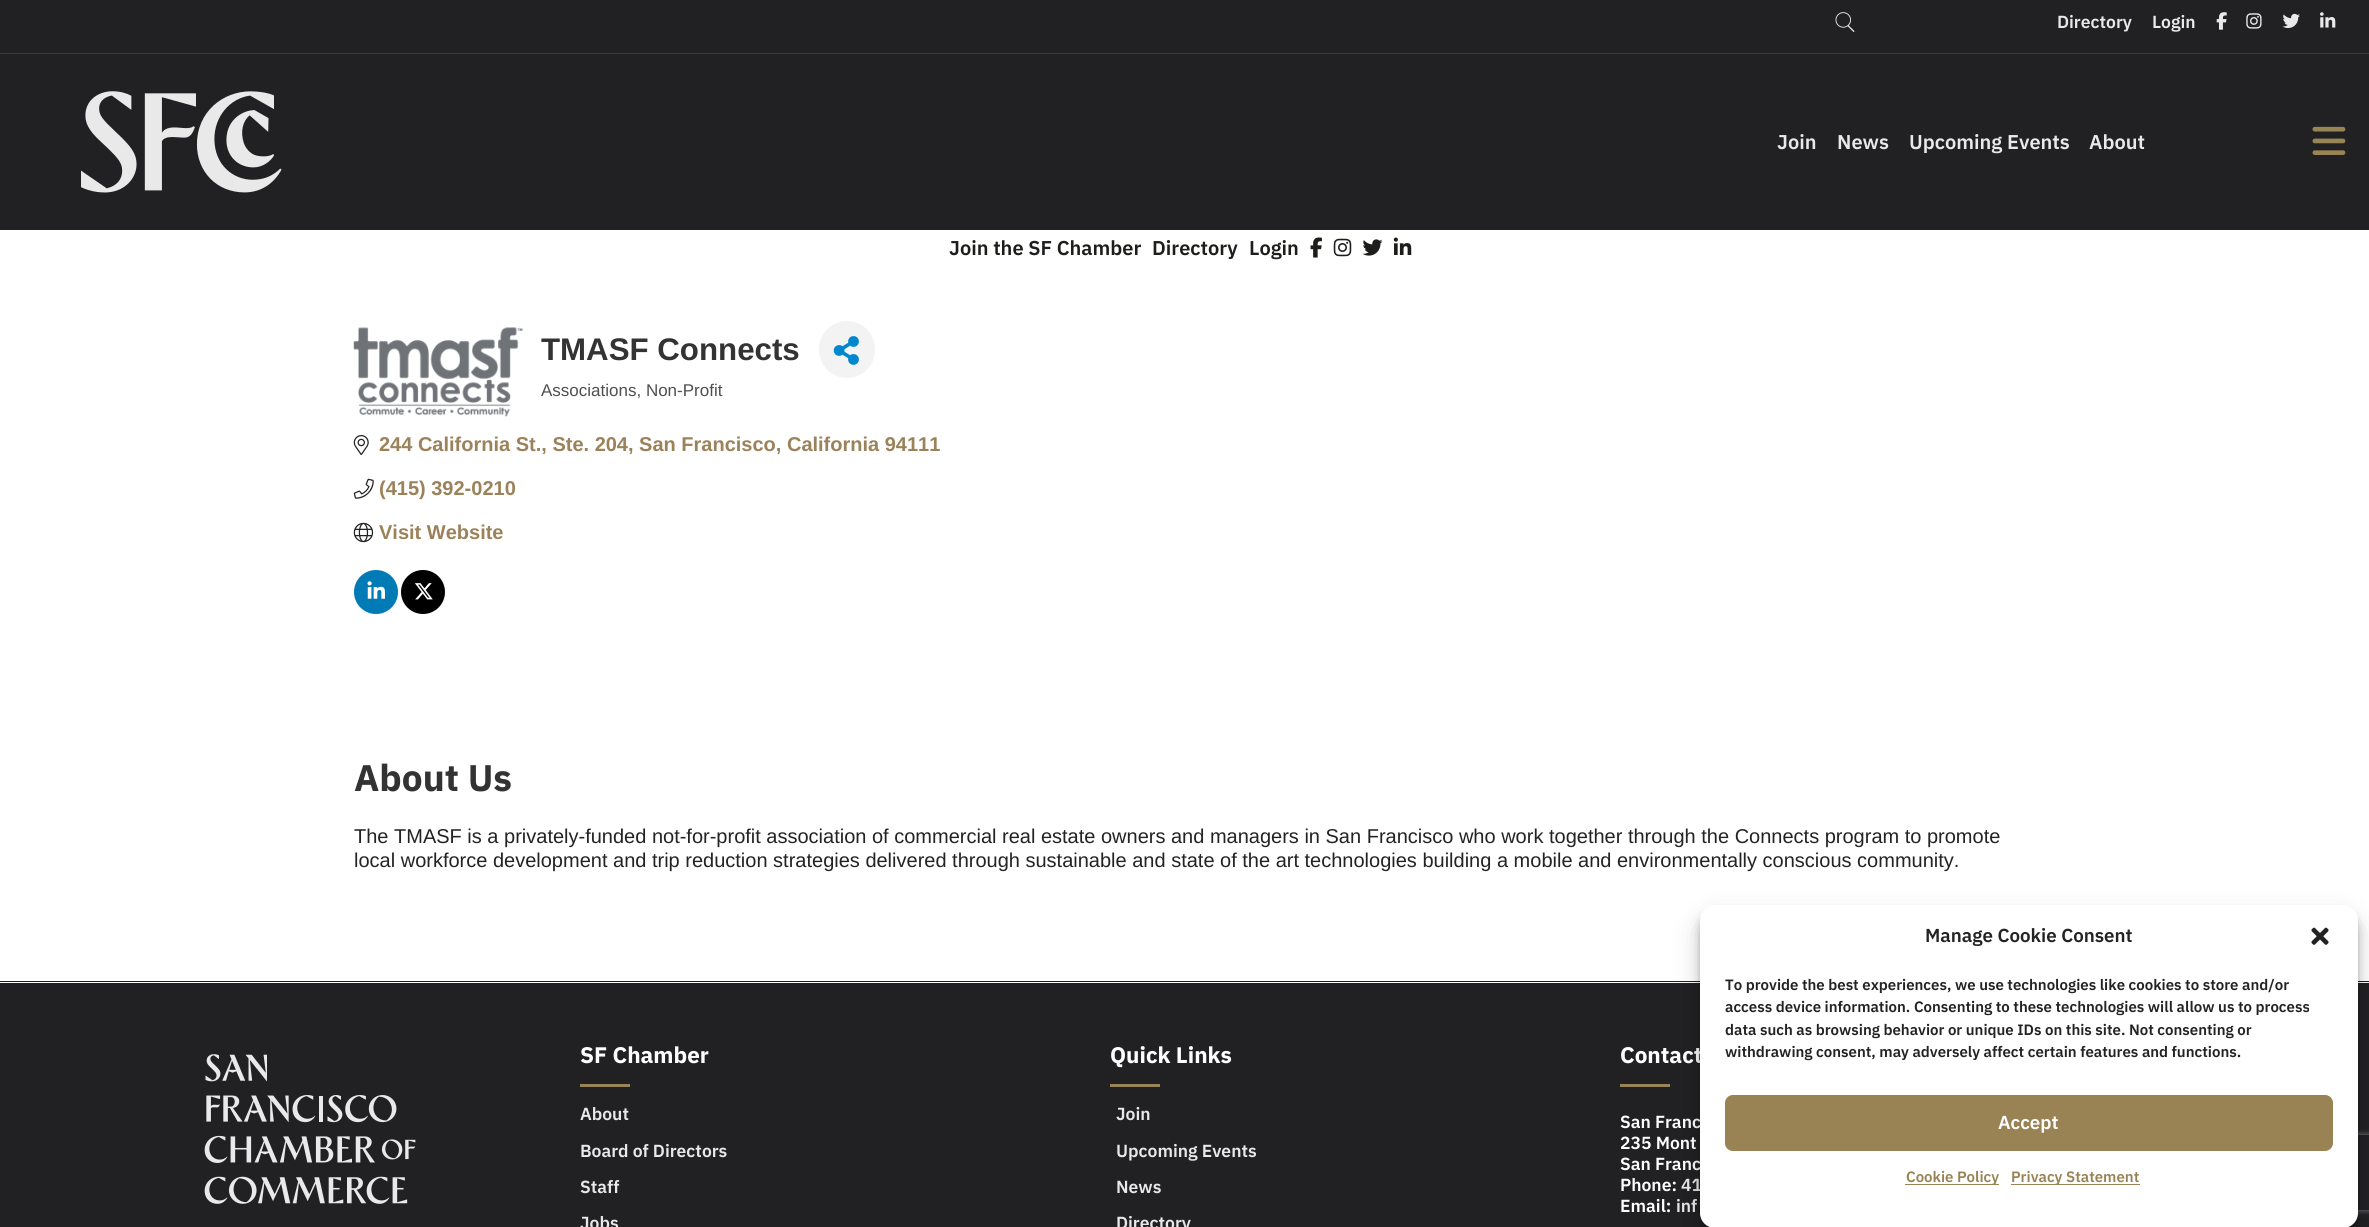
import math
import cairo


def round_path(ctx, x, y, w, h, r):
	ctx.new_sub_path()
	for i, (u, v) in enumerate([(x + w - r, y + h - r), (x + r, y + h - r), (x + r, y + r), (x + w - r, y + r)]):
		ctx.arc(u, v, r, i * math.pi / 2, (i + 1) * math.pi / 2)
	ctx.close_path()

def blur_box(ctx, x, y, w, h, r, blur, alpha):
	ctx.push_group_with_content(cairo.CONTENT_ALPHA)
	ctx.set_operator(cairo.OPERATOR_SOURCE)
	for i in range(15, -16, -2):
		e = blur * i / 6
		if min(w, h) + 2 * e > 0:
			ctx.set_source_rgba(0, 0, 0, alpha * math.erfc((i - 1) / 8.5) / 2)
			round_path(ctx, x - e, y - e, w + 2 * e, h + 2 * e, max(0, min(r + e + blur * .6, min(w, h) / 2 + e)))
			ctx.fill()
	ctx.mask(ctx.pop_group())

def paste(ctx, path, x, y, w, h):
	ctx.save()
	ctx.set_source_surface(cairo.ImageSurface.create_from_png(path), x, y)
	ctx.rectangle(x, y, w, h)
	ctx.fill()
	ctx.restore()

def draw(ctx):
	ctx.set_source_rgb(1, 1, 1)
	ctx.paint()
	ctx.set_source_rgb(0.129, 0.129, 0.137)
	ctx.rectangle(0, 0, 2369, 53)
	ctx.fill()
	ctx.set_source_rgb(0.231, 0.231, 0.239)
	ctx.rectangle(0, 53, 2369, 1)
	ctx.fill()
	paste(ctx, 'media/1.png', 1835, 12, 20, 20)
	ctx.select_font_face('IBM Plex Sans SemiBold')
	ctx.set_font_size(17.5)
	ctx.set_source_rgb(0.914, 0.914, 0.914)
	ctx.move_to(2057, 28)
	ctx.show_text('Directory')
	ctx.move_to(2152, 28)
	ctx.show_text('Login')
	paste(ctx, 'media/2.png', 2216, 12, 11, 18)
	paste(ctx, 'media/3.png', 2246, 13, 16, 16)
	paste(ctx, 'media/4.png', 2282, 13, 18, 15)
	paste(ctx, 'media/5.png', 2320, 12, 16, 16)
	ctx.set_source_rgb(0.129, 0.129, 0.137)
	ctx.rectangle(0, 54, 2369, 176)
	ctx.fill()
	paste(ctx, 'media/6.png', 81, 91, 201, 102)
	ctx.set_font_size(20)
	ctx.set_source_rgb(0.914, 0.914, 0.914)
	for x, y, s in [
		(1777, 149, 'Join'),
		(1837, 149, 'News'),
		(1909, 149, 'Upcoming Events'),
		(2089, 149, 'About'),
	]:
		ctx.move_to(x, y)
		ctx.show_text(s)
	paste(ctx, 'media/7.png', 2312, 126, 34, 29)
	ctx.set_source_rgb(0.114, 0.114, 0.106)
	for x, y, s in [
		(949, 255, 'Join the SF Chamber'),
		(1152, 255, 'Directory'),
		(1249, 255, 'Login'),
	]:
		ctx.move_to(x, y)
		ctx.show_text(s)
	paste(ctx, 'media/8.png', 1310, 237, 12, 21)
	paste(ctx, 'media/9.png', 1333, 238, 19, 19)
	paste(ctx, 'media/10.png', 1362, 239, 21, 17)
	paste(ctx, 'media/11.png', 1393, 237, 19, 18)
	ctx.rectangle(0, 981, 2369, 1)
	ctx.fill()
	paste(ctx, 'media/12.png', 353, 327, 170, 90)
	ctx.select_font_face('Liberation Sans', cairo.FONT_SLANT_NORMAL, cairo.FONT_WEIGHT_BOLD)
	ctx.set_font_size(31.25)
	ctx.set_source_rgb(0.2, 0.2, 0.2)
	ctx.move_to(541, 360)
	ctx.show_text('TMASF Connects')
	ctx.set_source_rgb(0.953, 0.953, 0.953)
	round_path(ctx, 819, 321, 56, 57, 28)
	ctx.fill()
	paste(ctx, 'media/13.png', 833, 336, 26, 29)
	ctx.select_font_face('Liberation Sans')
	ctx.set_font_size(17)
	ctx.set_source_rgb(0.31, 0.31, 0.31)
	ctx.move_to(541, 396)
	ctx.show_text('Associations, Non-Profit')
	paste(ctx, 'media/14.png', 353, 435, 16, 20)
	ctx.select_font_face('Liberation Sans', cairo.FONT_SLANT_NORMAL, cairo.FONT_WEIGHT_BOLD)
	ctx.set_font_size(20)
	ctx.set_source_rgb(0.608, 0.51, 0.353)
	ctx.move_to(379, 451)
	ctx.show_text('244 California St., Ste. 204, San Francisco, California 94111')
	paste(ctx, 'media/15.png', 353, 478, 21, 21)
	ctx.move_to(379, 495)
	ctx.show_text('(415) 392-0210')
	paste(ctx, 'media/16.png', 353, 522, 21, 21)
	ctx.move_to(379, 539)
	ctx.show_text('Visit Website')
	ctx.set_source_rgb(0, 0.482, 0.71)
	ctx.new_path()
	ctx.arc(376, 592, 22, 0, 2 * math.pi)
	ctx.fill()
	paste(ctx, 'media/17.png', 367, 581, 18, 18)
	ctx.set_source_rgb(0, 0, 0)
	ctx.arc(423, 592, 22, 0, 2 * math.pi)
	ctx.fill()
	paste(ctx, 'media/18.png', 414, 583, 19, 17)
	ctx.select_font_face('IBM Plex Sans', cairo.FONT_SLANT_NORMAL, cairo.FONT_WEIGHT_BOLD)
	ctx.set_font_size(37)
	ctx.set_source_rgb(0.2, 0.2, 0.2)
	ctx.move_to(354, 791)
	ctx.show_text('About Us')
	ctx.select_font_face('Liberation Sans')
	ctx.set_font_size(20)
	ctx.set_source_rgb(0.137, 0.137, 0.137)
	ctx.move_to(354, 843)
	ctx.show_text('The TMASF is a privately-funded not-for-profit association of commercial real estate owners and managers in San Francisco who work together through the Connects program to promote')
	ctx.move_to(354, 867)
	ctx.show_text('local workforce development and trip reduction strategies delivered through sustainable and state of the art technologies building a mobile and environmentally conscious community.')
	ctx.set_source_rgb(0.129, 0.129, 0.137)
	ctx.rectangle(0, 983, 2369, 244)
	ctx.fill()
	paste(ctx, 'media/19.png', 204, 1054, 212, 150)
	ctx.select_font_face('IBM Plex Sans', cairo.FONT_SLANT_NORMAL, cairo.FONT_WEIGHT_BOLD)
	ctx.set_font_size(22.5)
	ctx.set_source_rgb(1, 1, 1)
	ctx.move_to(580, 1063)
	ctx.show_text('SF Chamber')
	ctx.set_source_rgb(0.596, 0.518, 0.329)
	ctx.rectangle(580, 1084, 50, 3)
	ctx.fill()
	ctx.select_font_face('IBM Plex Sans SemiBold')
	ctx.set_font_size(17.5)
	ctx.set_source_rgb(0.914, 0.914, 0.914)
	for x, y, s in [
		(580, 1120, 'About'),
		(580, 1157, 'Board of Directors'),
		(580, 1193, 'Staff'),
		(580, 1229, 'Jobs'),
	]:
		ctx.move_to(x, y)
		ctx.show_text(s)
	ctx.select_font_face('IBM Plex Sans', cairo.FONT_SLANT_NORMAL, cairo.FONT_WEIGHT_BOLD)
	ctx.set_font_size(22.5)
	ctx.set_source_rgb(1, 1, 1)
	ctx.move_to(1110, 1063)
	ctx.show_text('Quick Links')
	ctx.set_source_rgb(0.596, 0.518, 0.329)
	ctx.rectangle(1110, 1084, 50, 3)
	ctx.fill()
	ctx.select_font_face('IBM Plex Sans SemiBold')
	ctx.set_font_size(17.5)
	ctx.set_source_rgb(0.914, 0.914, 0.914)
	for x, y, s in [
		(1116, 1120, 'Join'),
		(1116, 1157, 'Upcoming Events'),
		(1116, 1193, 'News'),
		(1116, 1229, 'Directory'),
	]:
		ctx.move_to(x, y)
		ctx.show_text(s)
	ctx.select_font_face('IBM Plex Sans', cairo.FONT_SLANT_NORMAL, cairo.FONT_WEIGHT_BOLD)
	ctx.set_font_size(22.5)
	ctx.set_source_rgb(1, 1, 1)
	ctx.move_to(1620, 1063)
	ctx.show_text('Contact')
	ctx.set_source_rgb(0.596, 0.518, 0.329)
	ctx.rectangle(1620, 1084, 50, 3)
	ctx.fill()
	ctx.select_font_face('IBM Plex Sans SemiBold')
	ctx.set_font_size(17.5)
	ctx.set_source_rgb(1, 1, 1)
	for x, y, s in [
		(1620, 1128, 'San Franc'),
		(1620, 1149, '235 Mont'),
		(1620, 1170, 'San Franc'),
		(1620, 1191, 'Phone:'),
	]:
		ctx.move_to(x, y)
		ctx.show_text(s)
	ctx.set_source_rgb(0.914, 0.914, 0.914)
	ctx.move_to(1681, 1191)
	ctx.show_text('41')
	ctx.set_source_rgb(1, 1, 1)
	ctx.move_to(1620, 1212)
	ctx.show_text('Email:')
	ctx.set_source_rgb(0.914, 0.914, 0.914)
	ctx.move_to(1676, 1212)
	ctx.show_text('inf')
	ctx.set_source_rgb(0, 0, 0)
	blur_box(ctx, 1700, 913, 658, 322, 15, 4, 0.23)
	blur_box(ctx, 1700, 918, 658, 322, 15, 12.5, 0.19)
	ctx.save()
	ctx.set_fill_rule(cairo.FILL_RULE_EVEN_ODD)
	ctx.new_path()
	ctx.move_to(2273, 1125)
	ctx.line_to(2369, 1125)
	ctx.line_to(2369, 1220)
	ctx.line_to(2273, 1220)
	ctx.close_path()
	ctx.move_to(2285.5, 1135)
	ctx.line_to(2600.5, 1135)
	ctx.curve_to(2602, 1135, 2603, 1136, 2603, 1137.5)
	ctx.line_to(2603, 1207.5)
	ctx.curve_to(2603, 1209, 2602, 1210, 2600.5, 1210)
	ctx.line_to(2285.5, 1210)
	ctx.curve_to(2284, 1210, 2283, 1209, 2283, 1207.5)
	ctx.line_to(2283, 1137.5)
	ctx.curve_to(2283, 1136, 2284, 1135, 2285.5, 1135)
	ctx.close_path()
	ctx.clip()
	ctx.set_source_rgb(0.502, 0.502, 0.502)
	blur_box(ctx, 2283, 1135, 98, 75, 2.5, 3, 1)
	ctx.restore()
	ctx.set_source_rgb(1, 1, 1)
	round_path(ctx, 1700, 905, 658, 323, 15)
	ctx.fill()
	ctx.set_font_size(18.75)
	ctx.set_source_rgb(0.137, 0.137, 0.137)
	ctx.move_to(1925, 942)
	ctx.show_text('Manage Cookie Consent')
	paste(ctx, 'media/20.png', 2311, 927, 18, 18)
	ctx.set_font_size(15)
	for x, y, s in [
		(1725, 990, 'To provide the best experiences, we use technologies like cookies to store and/or'),
		(1725, 1012, 'access device information. Consenting to these technologies will allow us to process'),
		(1725, 1035, 'data such as browsing behavior or unique IDs on this site. Not consenting or'),
		(1725, 1057, 'withdrawing consent, may adversely affect certain features and functions.'),
	]:
		ctx.move_to(x, y)
		ctx.show_text(s)
	ctx.set_source_rgb(0.6, 0.514, 0.329)
	round_path(ctx, 1725.5, 1095.5, 607, 55, 7.5)
	ctx.fill_preserve()
	ctx.set_line_width(1)
	ctx.stroke()
	ctx.set_font_size(18.75)
	ctx.set_source_rgb(1, 1, 1)
	ctx.move_to(1998, 1129)
	ctx.show_text('Accept')
	ctx.set_source_rgb(0.6, 0.514, 0.329)
	ctx.rectangle(1905, 1184, 94, 1)
	ctx.fill()
	ctx.set_font_size(15)
	ctx.move_to(1906, 1182)
	ctx.show_text('Cookie Policy')
	ctx.rectangle(2011, 1184, 129, 1)
	ctx.fill()
	ctx.move_to(2011, 1182)
	ctx.show_text('Privacy Statement')


surface = cairo.ImageSurface(cairo.FORMAT_RGB24, 2369, 1227)
ctx = cairo.Context(surface)
options = cairo.FontOptions()
options.set_hint_metrics(cairo.HINT_METRICS_OFF)
options.set_hint_style(cairo.HINT_STYLE_NONE)
ctx.set_font_options(options)
ctx.set_miter_limit(4)
draw(ctx)
surface.write_to_png('image.png')
